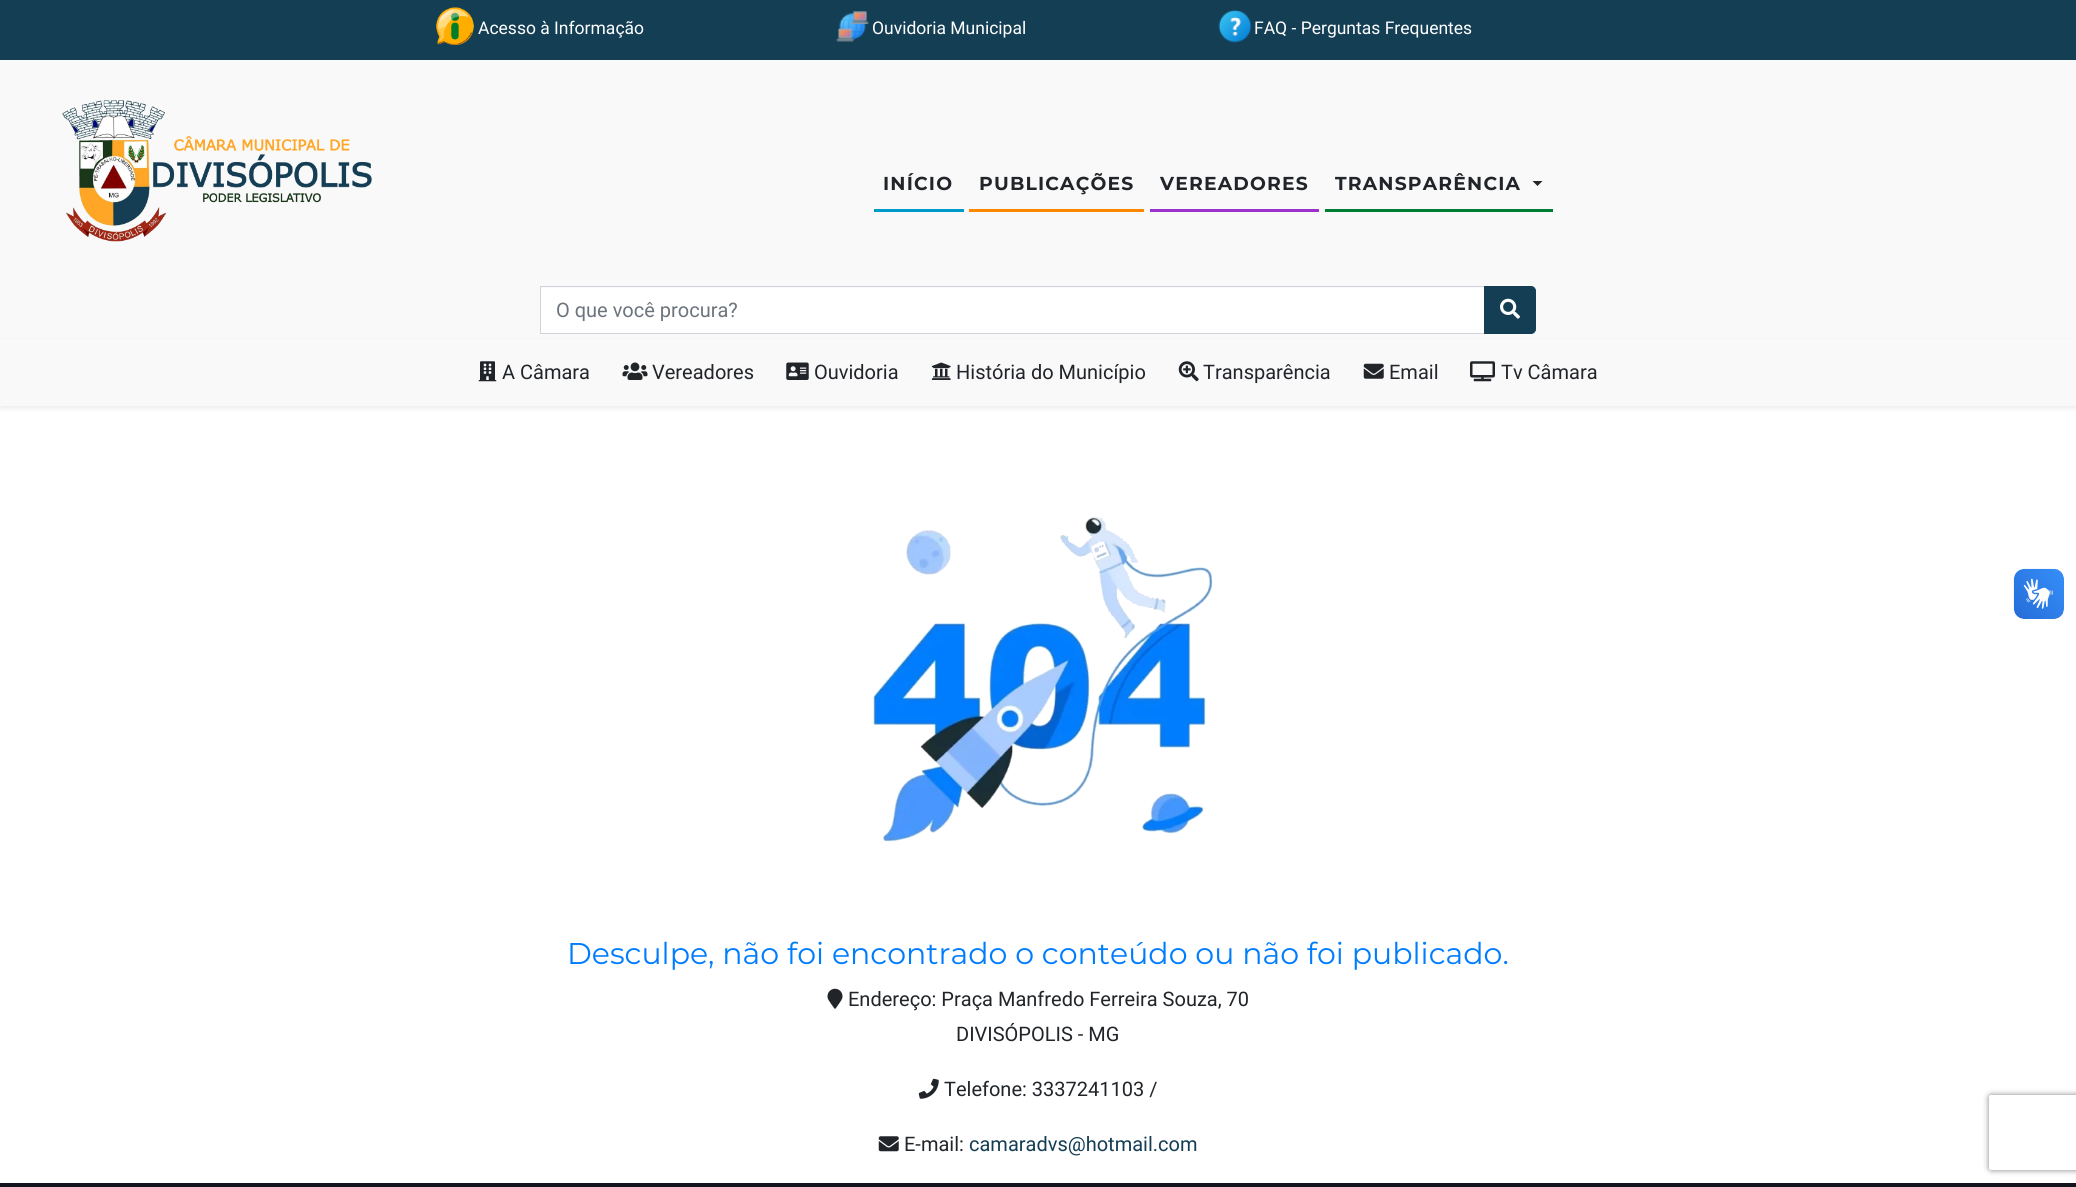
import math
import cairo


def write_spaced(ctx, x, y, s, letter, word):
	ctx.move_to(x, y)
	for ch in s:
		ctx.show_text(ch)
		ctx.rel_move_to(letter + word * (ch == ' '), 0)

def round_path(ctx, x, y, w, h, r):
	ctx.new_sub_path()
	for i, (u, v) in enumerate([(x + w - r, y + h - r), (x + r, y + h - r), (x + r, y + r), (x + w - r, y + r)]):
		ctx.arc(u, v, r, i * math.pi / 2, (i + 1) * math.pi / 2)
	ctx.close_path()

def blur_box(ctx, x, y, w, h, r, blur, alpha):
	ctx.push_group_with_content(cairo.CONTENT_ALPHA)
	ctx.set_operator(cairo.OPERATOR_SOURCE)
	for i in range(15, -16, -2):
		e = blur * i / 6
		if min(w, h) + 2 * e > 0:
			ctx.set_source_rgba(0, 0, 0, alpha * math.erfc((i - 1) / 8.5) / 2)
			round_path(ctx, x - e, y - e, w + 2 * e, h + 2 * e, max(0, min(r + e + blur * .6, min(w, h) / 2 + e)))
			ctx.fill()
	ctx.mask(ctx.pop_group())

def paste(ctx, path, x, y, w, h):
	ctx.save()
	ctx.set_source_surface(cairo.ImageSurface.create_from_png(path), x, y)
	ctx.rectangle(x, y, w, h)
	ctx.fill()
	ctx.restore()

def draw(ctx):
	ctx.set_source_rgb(1, 1, 1)
	ctx.paint()
	ctx.set_source_rgb(0.082, 0.243, 0.329)
	ctx.rectangle(0, 0, 2076, 60)
	ctx.fill()
	paste(ctx, 'media/1.png', 436, 7, 38, 38)
	ctx.select_font_face('Roboto')
	ctx.set_font_size(17.5)
	ctx.set_source_rgb(1, 1, 1)
	ctx.move_to(478, 34)
	ctx.show_text('Acesso à Informação')
	paste(ctx, 'media/2.png', 836, 11, 33, 31)
	ctx.move_to(872, 34)
	ctx.show_text('Ouvidoria Municipal')
	paste(ctx, 'media/3.png', 1218, 9, 34, 34)
	ctx.move_to(1254, 34)
	ctx.show_text('FAQ - Perguntas Frequentes')
	ctx.set_source_rgb(0.973, 0.976, 0.98)
	ctx.rectangle(0, 60, 2076, 279)
	ctx.fill()
	paste(ctx, 'media/4.png', 62, 100, 310, 142)
	ctx.set_source_rgb(0, 0.6, 0.8)
	ctx.rectangle(874, 209, 90, 3)
	ctx.fill()
	ctx.select_font_face('Montserrat', cairo.FONT_SLANT_NORMAL, cairo.FONT_WEIGHT_BOLD)
	ctx.set_font_size(18.75)
	ctx.set_source_rgb(0.129, 0.145, 0.161)
	write_spaced(ctx, 883, 190, 'INÍCIO', 1.2, 0)
	ctx.set_source_rgb(1, 0.533, 0)
	ctx.rectangle(969, 209, 175, 3)
	ctx.fill()
	ctx.set_source_rgb(0.129, 0.145, 0.161)
	write_spaced(ctx, 979, 190, 'PUBLICAÇÕES', 1.2, 0)
	ctx.set_source_rgb(0.6, 0.2, 0.8)
	ctx.rectangle(1150, 209, 169, 3)
	ctx.fill()
	ctx.set_source_rgb(0.129, 0.145, 0.161)
	write_spaced(ctx, 1160, 190, 'VEREADORES', 1.2, 0)
	ctx.set_source_rgb(0, 0.494, 0.2)
	ctx.rectangle(1325, 209, 228, 3)
	ctx.fill()
	ctx.set_source_rgb(0.129, 0.145, 0.161)
	write_spaced(ctx, 1335, 190, 'TRANSPARÊNCIA', 1.2, 0)
	ctx.set_source_rgb(0.149, 0.149, 0.149)
	ctx.new_path()
	ctx.move_to(1532.5, 181)
	ctx.line_to(1542.5, 181)
	ctx.line_to(1537.5, 186)
	ctx.close_path()
	ctx.fill()
	ctx.set_source_rgb(1, 1, 1)
	ctx.rectangle(541, 288, 943, 45)
	ctx.fill()
	ctx.rectangle(540.5, 286.5, 944, 47)
	ctx.set_source_rgb(0.808, 0.831, 0.855)
	ctx.set_line_width(1)
	ctx.stroke()
	ctx.select_font_face('Roboto')
	ctx.set_font_size(20)
	ctx.set_source_rgb(0.424, 0.459, 0.49)
	ctx.move_to(556, 317)
	ctx.show_text('O que você procura?')
	ctx.set_source_rgb(0, 0, 0)
	blur_box(ctx, 0, 341, 2076, 68, 0, 2.5, 0.07)
	ctx.set_source_rgb(0.082, 0.243, 0.329)
	ctx.new_path()
	ctx.move_to(1484.5, 286.5)
	ctx.line_to(1531, 286.5)
	ctx.curve_to(1533.5, 286.5, 1535.5, 288.5, 1535.5, 291)
	ctx.line_to(1535.5, 329)
	ctx.curve_to(1535.5, 331.5, 1533.5, 333.5, 1531, 333.5)
	ctx.line_to(1484.5, 333.5)
	ctx.close_path()
	ctx.fill_preserve()
	ctx.stroke()
	paste(ctx, 'media/5.png', 1500, 298, 20, 21)
	ctx.set_source_rgb(0.973, 0.976, 0.98)
	ctx.rectangle(0, 339, 2076, 67)
	ctx.fill()
	paste(ctx, 'media/6.png', 478, 361, 19, 21)
	ctx.set_source_rgb(0.129, 0.145, 0.161)
	ctx.move_to(502, 379)
	ctx.show_text('A Câmara')
	paste(ctx, 'media/7.png', 622, 362, 26, 18)
	ctx.move_to(652, 379)
	ctx.show_text('Vereadores')
	paste(ctx, 'media/8.png', 786, 362, 23, 18)
	ctx.move_to(814, 379)
	ctx.show_text('Ouvidoria')
	paste(ctx, 'media/9.png', 931, 362, 20, 18)
	ctx.move_to(956, 379)
	ctx.show_text('História do Município')
	paste(ctx, 'media/10.png', 1178, 361, 21, 21)
	ctx.move_to(1203, 379)
	ctx.show_text('Transparência')
	paste(ctx, 'media/11.png', 1363, 363, 21, 16)
	ctx.move_to(1389, 379)
	ctx.show_text('Email')
	paste(ctx, 'media/12.png', 1470, 361, 25, 21)
	ctx.move_to(1501, 379)
	ctx.show_text('Tv Câmara')
	paste(ctx, 'media/13.png', 2013, 568, 51, 51)
	paste(ctx, 'media/14.png', 2014, 569, 50, 50)
	paste(ctx, 'media/15.png', 873, 517, 340, 325)
	ctx.select_font_face('Montserrat')
	ctx.set_font_size(30)
	ctx.set_source_rgb(0, 0.49, 0.996)
	ctx.move_to(567, 964)
	ctx.show_text('Desculpe, não foi encontrado o conteúdo ou não foi publicado.')
	paste(ctx, 'media/16.png', 827, 988, 16, 21)
	ctx.select_font_face('Roboto')
	ctx.set_font_size(20)
	ctx.set_source_rgb(0.129, 0.145, 0.161)
	ctx.move_to(848, 1006)
	ctx.show_text('Endereço: Praça Manfredo Ferreira Souza, 70')
	ctx.move_to(956, 1041)
	ctx.show_text('DIVISÓPOLIS - MG')
	paste(ctx, 'media/17.png', 918, 1078, 21, 21)
	ctx.move_to(944, 1096)
	ctx.show_text('Telefone: 3337241103 /')
	paste(ctx, 'media/18.png', 878, 1136, 21, 16)
	ctx.move_to(904, 1151)
	ctx.show_text('E-mail:')
	ctx.set_source_rgb(0.082, 0.243, 0.329)
	ctx.move_to(969, 1151)
	ctx.show_text('camaradvs@hotmail.com')
	ctx.save()
	ctx.set_fill_rule(cairo.FILL_RULE_EVEN_ODD)
	ctx.new_path()
	ctx.move_to(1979, 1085)
	ctx.line_to(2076, 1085)
	ctx.line_to(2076, 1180)
	ctx.line_to(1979, 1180)
	ctx.close_path()
	ctx.move_to(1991.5, 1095)
	ctx.line_to(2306.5, 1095)
	ctx.curve_to(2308, 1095, 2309, 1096, 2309, 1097.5)
	ctx.line_to(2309, 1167.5)
	ctx.curve_to(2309, 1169, 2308, 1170, 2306.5, 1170)
	ctx.line_to(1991.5, 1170)
	ctx.curve_to(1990, 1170, 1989, 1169, 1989, 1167.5)
	ctx.line_to(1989, 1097.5)
	ctx.curve_to(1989, 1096, 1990, 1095, 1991.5, 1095)
	ctx.close_path()
	ctx.clip()
	ctx.set_source_rgb(0.502, 0.502, 0.502)
	blur_box(ctx, 1989, 1095, 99, 75, 2.5, 3, 1)
	ctx.restore()
	ctx.set_source_rgb(0.082, 0.082, 0.118)
	ctx.rectangle(0, 1183, 2076, 4)
	ctx.fill()


surface = cairo.ImageSurface(cairo.FORMAT_RGB24, 2076, 1187)
ctx = cairo.Context(surface)
options = cairo.FontOptions()
options.set_hint_metrics(cairo.HINT_METRICS_OFF)
options.set_hint_style(cairo.HINT_STYLE_NONE)
ctx.set_font_options(options)
ctx.set_miter_limit(4)
draw(ctx)
surface.write_to_png('image.png')
